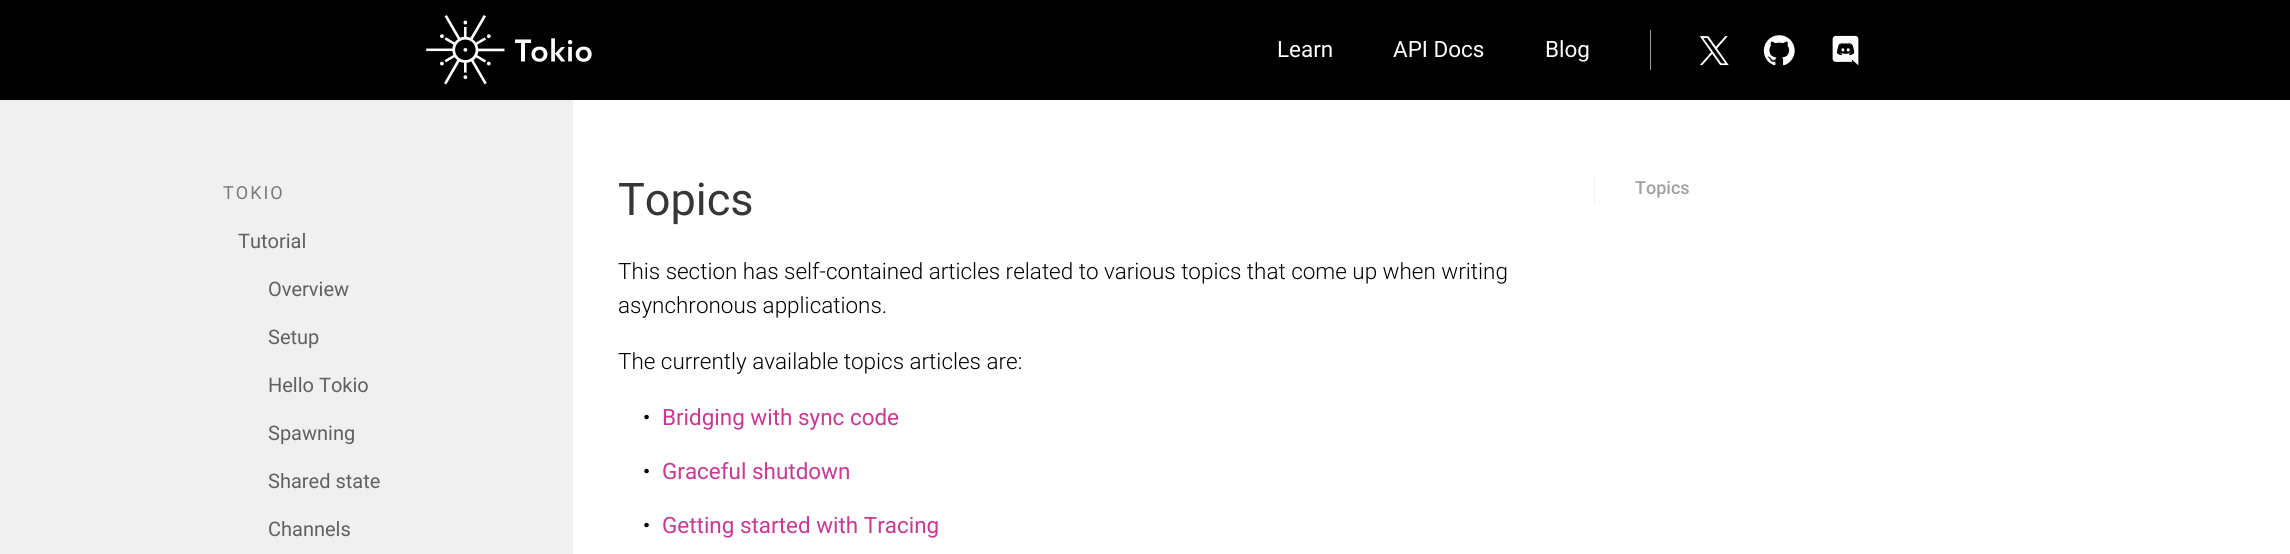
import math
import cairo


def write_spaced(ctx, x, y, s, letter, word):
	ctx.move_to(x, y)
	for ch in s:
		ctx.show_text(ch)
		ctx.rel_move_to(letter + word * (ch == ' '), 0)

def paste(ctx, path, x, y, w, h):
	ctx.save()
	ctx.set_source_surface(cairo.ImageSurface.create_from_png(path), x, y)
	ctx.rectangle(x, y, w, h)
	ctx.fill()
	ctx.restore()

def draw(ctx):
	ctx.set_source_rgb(1, 1, 1)
	ctx.paint()
	ctx.set_source_rgb(0, 0, 0)
	ctx.rectangle(0, 0, 2290, 100)
	ctx.fill()
	paste(ctx, 'media/1.png', 426, 15, 166, 70)
	ctx.select_font_face('Roboto')
	ctx.set_font_size(22.45)
	ctx.set_source_rgb(1, 1, 1)
	for x, y, s in [
		(1277, 57, 'Learn'),
		(1393, 57, 'API Docs'),
		(1545, 57, 'Blog'),
	]:
		ctx.move_to(x, y)
		ctx.show_text(s)
	ctx.set_source_rgb(0.627, 0.627, 0.627)
	ctx.rectangle(1650, 30, 1, 40)
	ctx.fill()
	paste(ctx, 'media/2.png', 1699, 36, 30, 30)
	paste(ctx, 'media/3.png', 1763, 35, 32, 31)
	paste(ctx, 'media/4.png', 1832, 35, 27, 31)
	ctx.set_source_rgb(0.941, 0.941, 0.941)
	ctx.rectangle(0, 100, 573, 454)
	ctx.fill()
	ctx.set_font_size(18)
	ctx.set_source_rgb(0.478, 0.478, 0.478)
	write_spaced(ctx, 223, 199, 'TOKIO', 2, 0)
	ctx.set_font_size(20)
	ctx.set_source_rgb(0.376, 0.376, 0.376)
	for x, y, s in [
		(238, 248, 'Tutorial'),
		(268, 296, 'Overview'),
		(268, 344, 'Setup'),
		(268, 392, 'Hello Tokio'),
		(268, 440, 'Spawning'),
		(268, 488, 'Shared state'),
		(268, 536, 'Channels'),
	]:
		ctx.move_to(x, y)
		ctx.show_text(s)
	ctx.set_font_size(45)
	ctx.set_source_rgb(0.212, 0.212, 0.212)
	ctx.move_to(618, 215)
	ctx.show_text('Topics')
	ctx.select_font_face('Roboto Light')
	ctx.set_font_size(22.45)
	ctx.set_source_rgb(0, 0, 0)
	for x, y, s in [
		(618, 279, 'This section has self-contained articles related to various topics that come up when writing'),
		(618, 313, 'asynchronous applications.'),
		(618, 369, 'The currently available topics articles are:'),
	]:
		ctx.move_to(x, y)
		ctx.show_text(s)
	ctx.set_font_size(54)
	ctx.move_to(640, 436)
	ctx.show_text('·')
	ctx.select_font_face('Roboto')
	ctx.set_font_size(22.45)
	ctx.set_source_rgb(0.784, 0.22, 0.584)
	ctx.move_to(662, 425)
	ctx.show_text('Bridging with sync code')
	ctx.select_font_face('Roboto Light')
	ctx.set_font_size(54)
	ctx.set_source_rgb(0, 0, 0)
	ctx.move_to(640, 490)
	ctx.show_text('·')
	ctx.select_font_face('Roboto')
	ctx.set_font_size(22.45)
	ctx.set_source_rgb(0.784, 0.22, 0.584)
	ctx.move_to(662, 479)
	ctx.show_text('Graceful shutdown')
	ctx.select_font_face('Roboto Light')
	ctx.set_font_size(54)
	ctx.set_source_rgb(0, 0, 0)
	ctx.move_to(640, 544)
	ctx.show_text('·')
	ctx.select_font_face('Roboto')
	ctx.set_font_size(22.45)
	ctx.set_source_rgb(0.784, 0.22, 0.584)
	ctx.move_to(662, 533)
	ctx.show_text('Getting started with Tracing')
	ctx.set_source_rgb(0.941, 0.941, 0.941)
	ctx.rectangle(1594, 175, 1, 28)
	ctx.fill()
	ctx.select_font_face('Roboto Medium')
	ctx.set_font_size(18)
	ctx.set_source_rgb(0.627, 0.627, 0.627)
	ctx.move_to(1635, 194)
	ctx.show_text('Topics')


surface = cairo.ImageSurface(cairo.FORMAT_RGB24, 2290, 554)
ctx = cairo.Context(surface)
options = cairo.FontOptions()
options.set_hint_metrics(cairo.HINT_METRICS_OFF)
options.set_hint_style(cairo.HINT_STYLE_NONE)
ctx.set_font_options(options)
ctx.set_miter_limit(4)
draw(ctx)
surface.write_to_png('image.png')
